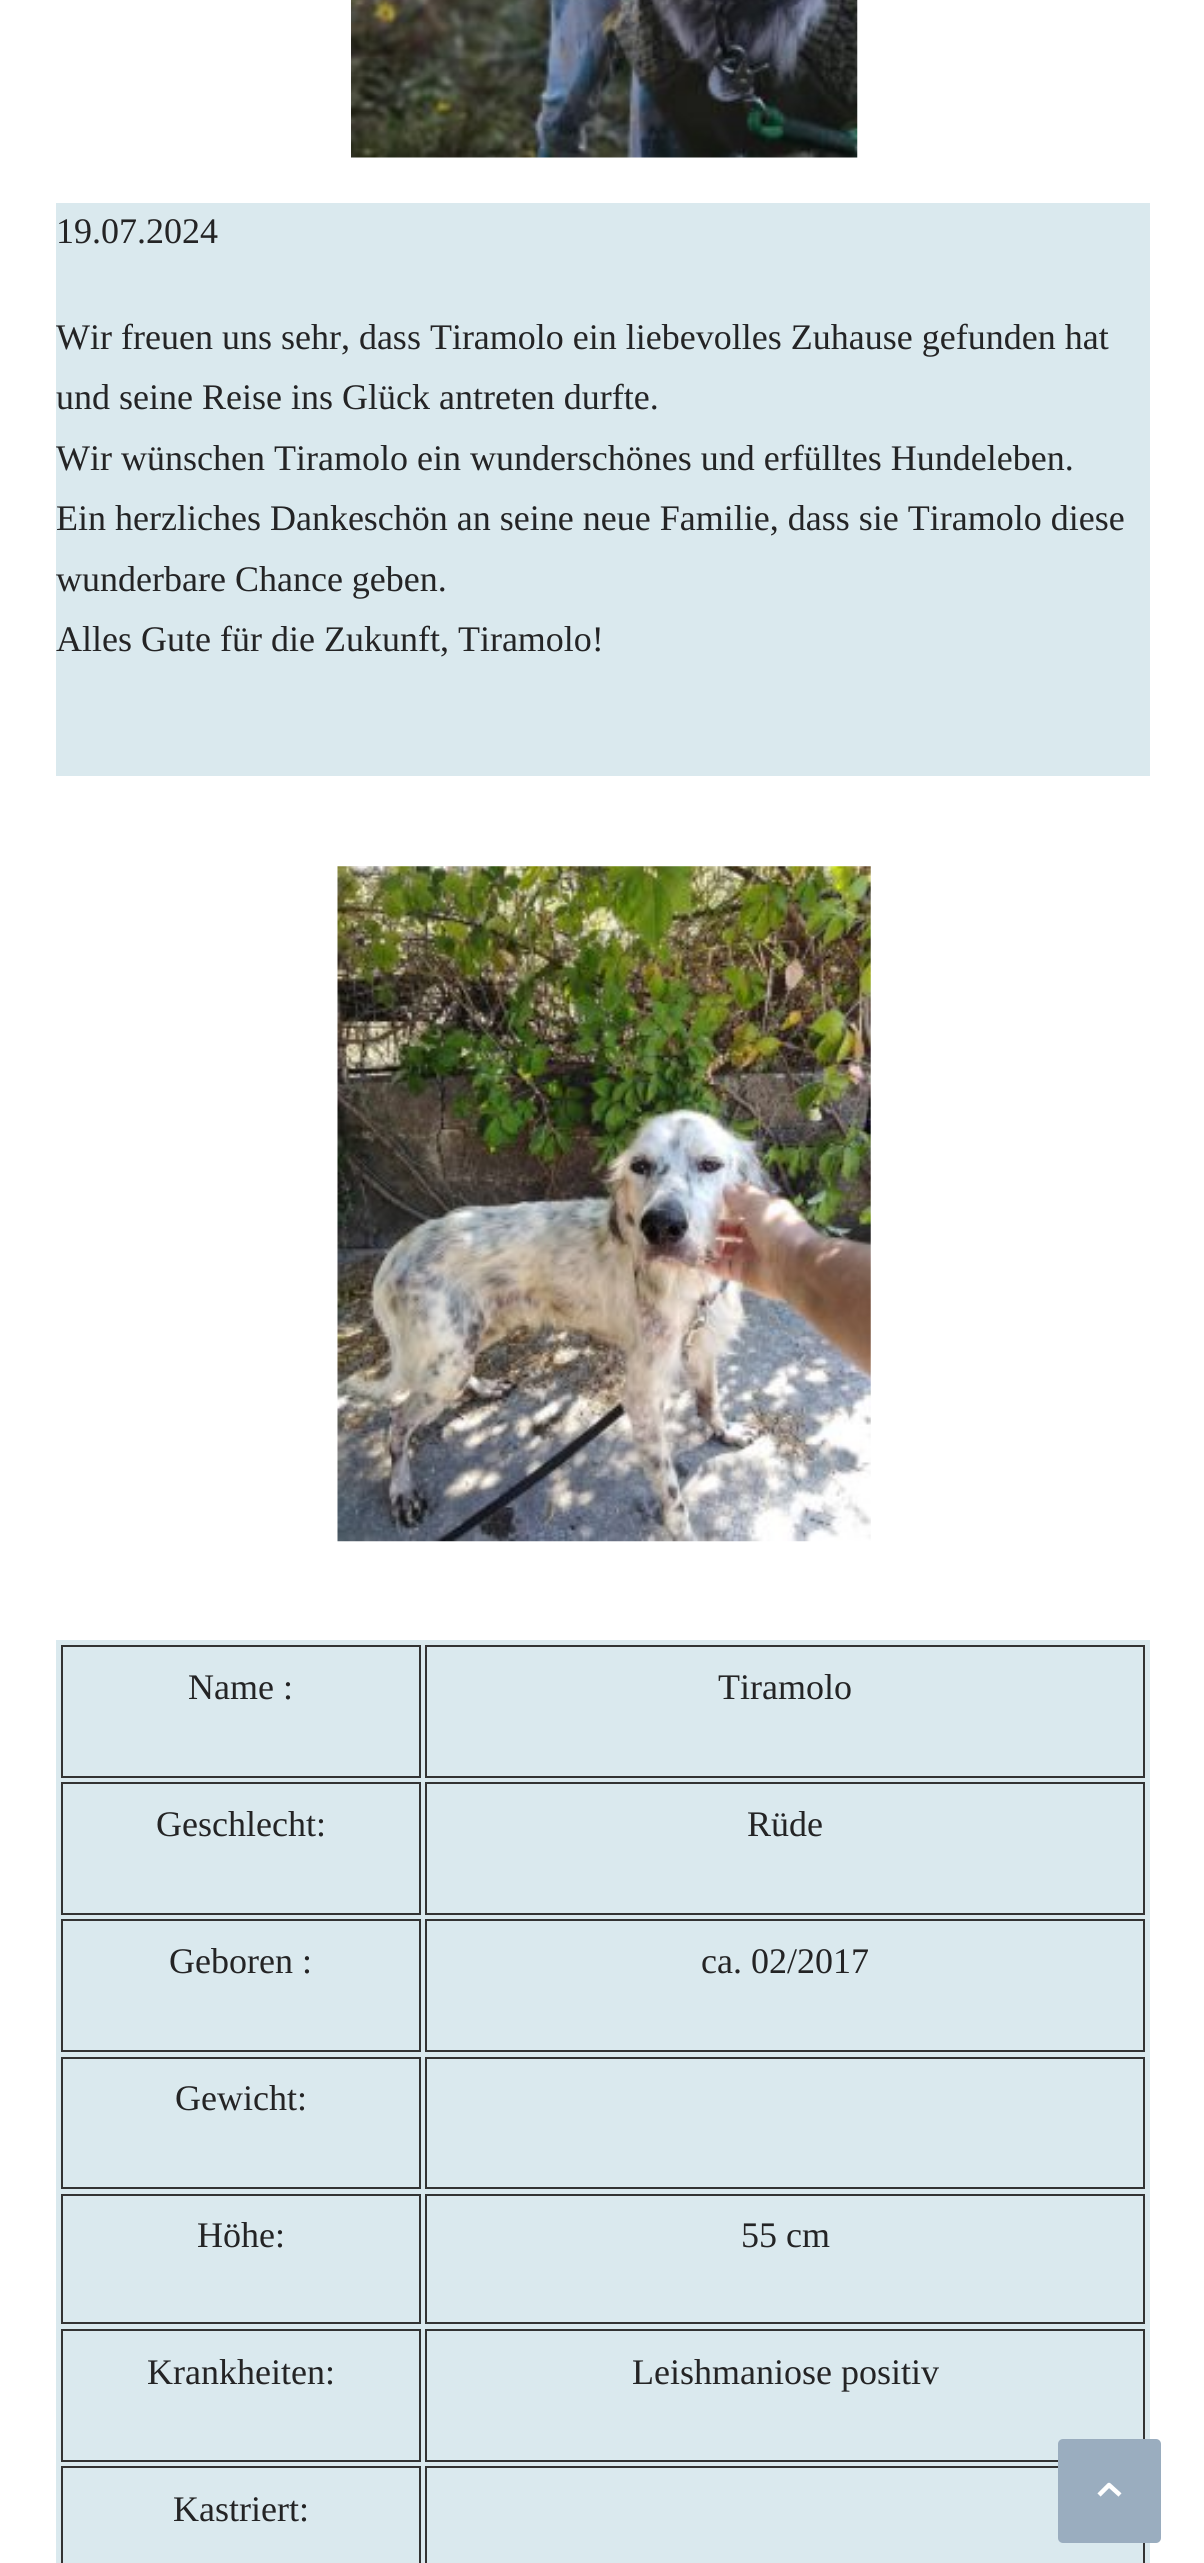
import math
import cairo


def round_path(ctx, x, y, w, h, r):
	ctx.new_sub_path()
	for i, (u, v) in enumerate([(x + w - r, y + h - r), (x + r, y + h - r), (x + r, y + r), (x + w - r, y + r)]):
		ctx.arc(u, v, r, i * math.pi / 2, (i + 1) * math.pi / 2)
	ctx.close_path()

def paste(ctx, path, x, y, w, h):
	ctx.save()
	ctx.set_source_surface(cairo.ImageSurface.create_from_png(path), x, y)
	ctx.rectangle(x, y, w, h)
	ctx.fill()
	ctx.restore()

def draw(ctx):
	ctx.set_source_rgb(1, 1, 1)
	ctx.paint()
	paste(ctx, 'media/1.png', 351, 0, 507, 158)
	ctx.set_source_rgb(0.855, 0.914, 0.933)
	ctx.rectangle(56, 203, 1094, 573)
	ctx.fill()
	ctx.select_font_face('Liberation Serif')
	ctx.set_font_size(36)
	ctx.set_source_rgb(0.141, 0.141, 0.145)
	for x, y, s in [
		(56, 243, '19.07.2024'),
		(56, 349, 'Wir freuen uns sehr, dass Tiramolo ein liebevolles Zuhause gefunden hat'),
		(56, 409, 'und seine Reise ins Glück antreten durfte.'),
		(56, 470, 'Wir wünschen Tiramolo ein wunderschönes und erfülltes Hundeleben.'),
		(56, 530, 'Ein herzliches Dankeschön an seine neue Familie, dass sie Tiramolo diese'),
		(56, 591, 'wunderbare Chance geben.'),
		(56, 651, 'Alles Gute für die Zukunft, Tiramolo!'),
	]:
		ctx.move_to(x, y)
		ctx.show_text(s)
	paste(ctx, 'media/2.png', 337, 866, 534, 676)
	ctx.set_source_rgb(0.855, 0.914, 0.933)
	ctx.rectangle(56, 1640, 1094, 923)
	ctx.fill()
	ctx.rectangle(62, 1646, 358, 131)
	ctx.set_source_rgb(0.2, 0.2, 0.2)
	ctx.stroke()
	ctx.set_source_rgb(0.141, 0.141, 0.145)
	ctx.move_to(188, 1699)
	ctx.show_text('Name :')
	ctx.rectangle(426, 1646, 718, 131)
	ctx.set_source_rgb(0.2, 0.2, 0.2)
	ctx.stroke()
	ctx.set_source_rgb(0.141, 0.141, 0.145)
	ctx.move_to(718, 1699)
	ctx.show_text('Tiramolo')
	ctx.rectangle(62, 1783, 358, 131)
	ctx.set_source_rgb(0.2, 0.2, 0.2)
	ctx.stroke()
	ctx.set_source_rgb(0.141, 0.141, 0.145)
	ctx.move_to(156, 1836)
	ctx.show_text('Geschlecht:')
	ctx.rectangle(426, 1783, 718, 131)
	ctx.set_source_rgb(0.2, 0.2, 0.2)
	ctx.stroke()
	ctx.set_source_rgb(0.141, 0.141, 0.145)
	ctx.move_to(747, 1836)
	ctx.show_text('Rüde')
	ctx.rectangle(62, 1920, 358, 131)
	ctx.set_source_rgb(0.2, 0.2, 0.2)
	ctx.stroke()
	ctx.set_source_rgb(0.141, 0.141, 0.145)
	ctx.move_to(169, 1973)
	ctx.show_text('Geboren :')
	ctx.rectangle(426, 1920, 718, 131)
	ctx.set_source_rgb(0.2, 0.2, 0.2)
	ctx.stroke()
	ctx.set_source_rgb(0.141, 0.141, 0.145)
	ctx.move_to(701, 1973)
	ctx.show_text('ca. 02/2017')
	ctx.rectangle(62, 2058, 358, 130)
	ctx.set_source_rgb(0.2, 0.2, 0.2)
	ctx.stroke()
	ctx.set_source_rgb(0.141, 0.141, 0.145)
	ctx.move_to(175, 2110)
	ctx.show_text('Gewicht:')
	ctx.rectangle(426, 2058, 718, 130)
	ctx.set_source_rgb(0.2, 0.2, 0.2)
	ctx.stroke()
	ctx.rectangle(62, 2195, 358, 128)
	ctx.stroke()
	ctx.set_source_rgb(0.141, 0.141, 0.145)
	ctx.move_to(197, 2247)
	ctx.show_text('Höhe:')
	ctx.rectangle(426, 2195, 718, 128)
	ctx.set_source_rgb(0.2, 0.2, 0.2)
	ctx.stroke()
	ctx.set_source_rgb(0.141, 0.141, 0.145)
	ctx.move_to(741, 2247)
	ctx.show_text('55 cm')
	ctx.rectangle(62, 2330, 358, 131)
	ctx.set_source_rgb(0.2, 0.2, 0.2)
	ctx.stroke()
	ctx.set_source_rgb(0.141, 0.141, 0.145)
	ctx.move_to(147, 2384)
	ctx.show_text('Krankheiten:')
	ctx.rectangle(426, 2330, 718, 131)
	ctx.set_source_rgb(0.2, 0.2, 0.2)
	ctx.stroke()
	ctx.set_source_rgb(0.141, 0.141, 0.145)
	ctx.move_to(632, 2384)
	ctx.show_text('Leishmaniose positiv')
	ctx.rectangle(62, 2467, 358, 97)
	ctx.set_source_rgb(0.2, 0.2, 0.2)
	ctx.stroke()
	ctx.set_source_rgb(0.141, 0.141, 0.145)
	ctx.move_to(173, 2521)
	ctx.show_text('Kastriert:')
	ctx.rectangle(426, 2467, 718, 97)
	ctx.set_source_rgb(0.2, 0.2, 0.2)
	ctx.stroke()
	ctx.set_source_rgb(0.604, 0.678, 0.749)
	round_path(ctx, 1058, 2439, 103, 104, 5)
	ctx.fill()
	ctx.new_path()
	ctx.move_to(1099, 2495)
	ctx.line_to(1109, 2485)
	ctx.line_to(1120, 2495)
	ctx.set_source_rgb(1, 1, 1)
	ctx.set_line_width(4.5)
	ctx.set_line_join(cairo.LINE_JOIN_ROUND)
	ctx.stroke()


surface = cairo.ImageSurface(cairo.FORMAT_RGB24, 1204, 2563)
ctx = cairo.Context(surface)
options = cairo.FontOptions()
options.set_hint_metrics(cairo.HINT_METRICS_OFF)
options.set_hint_style(cairo.HINT_STYLE_NONE)
ctx.set_font_options(options)
ctx.set_miter_limit(4)
draw(ctx)
surface.write_to_png('image.png')
